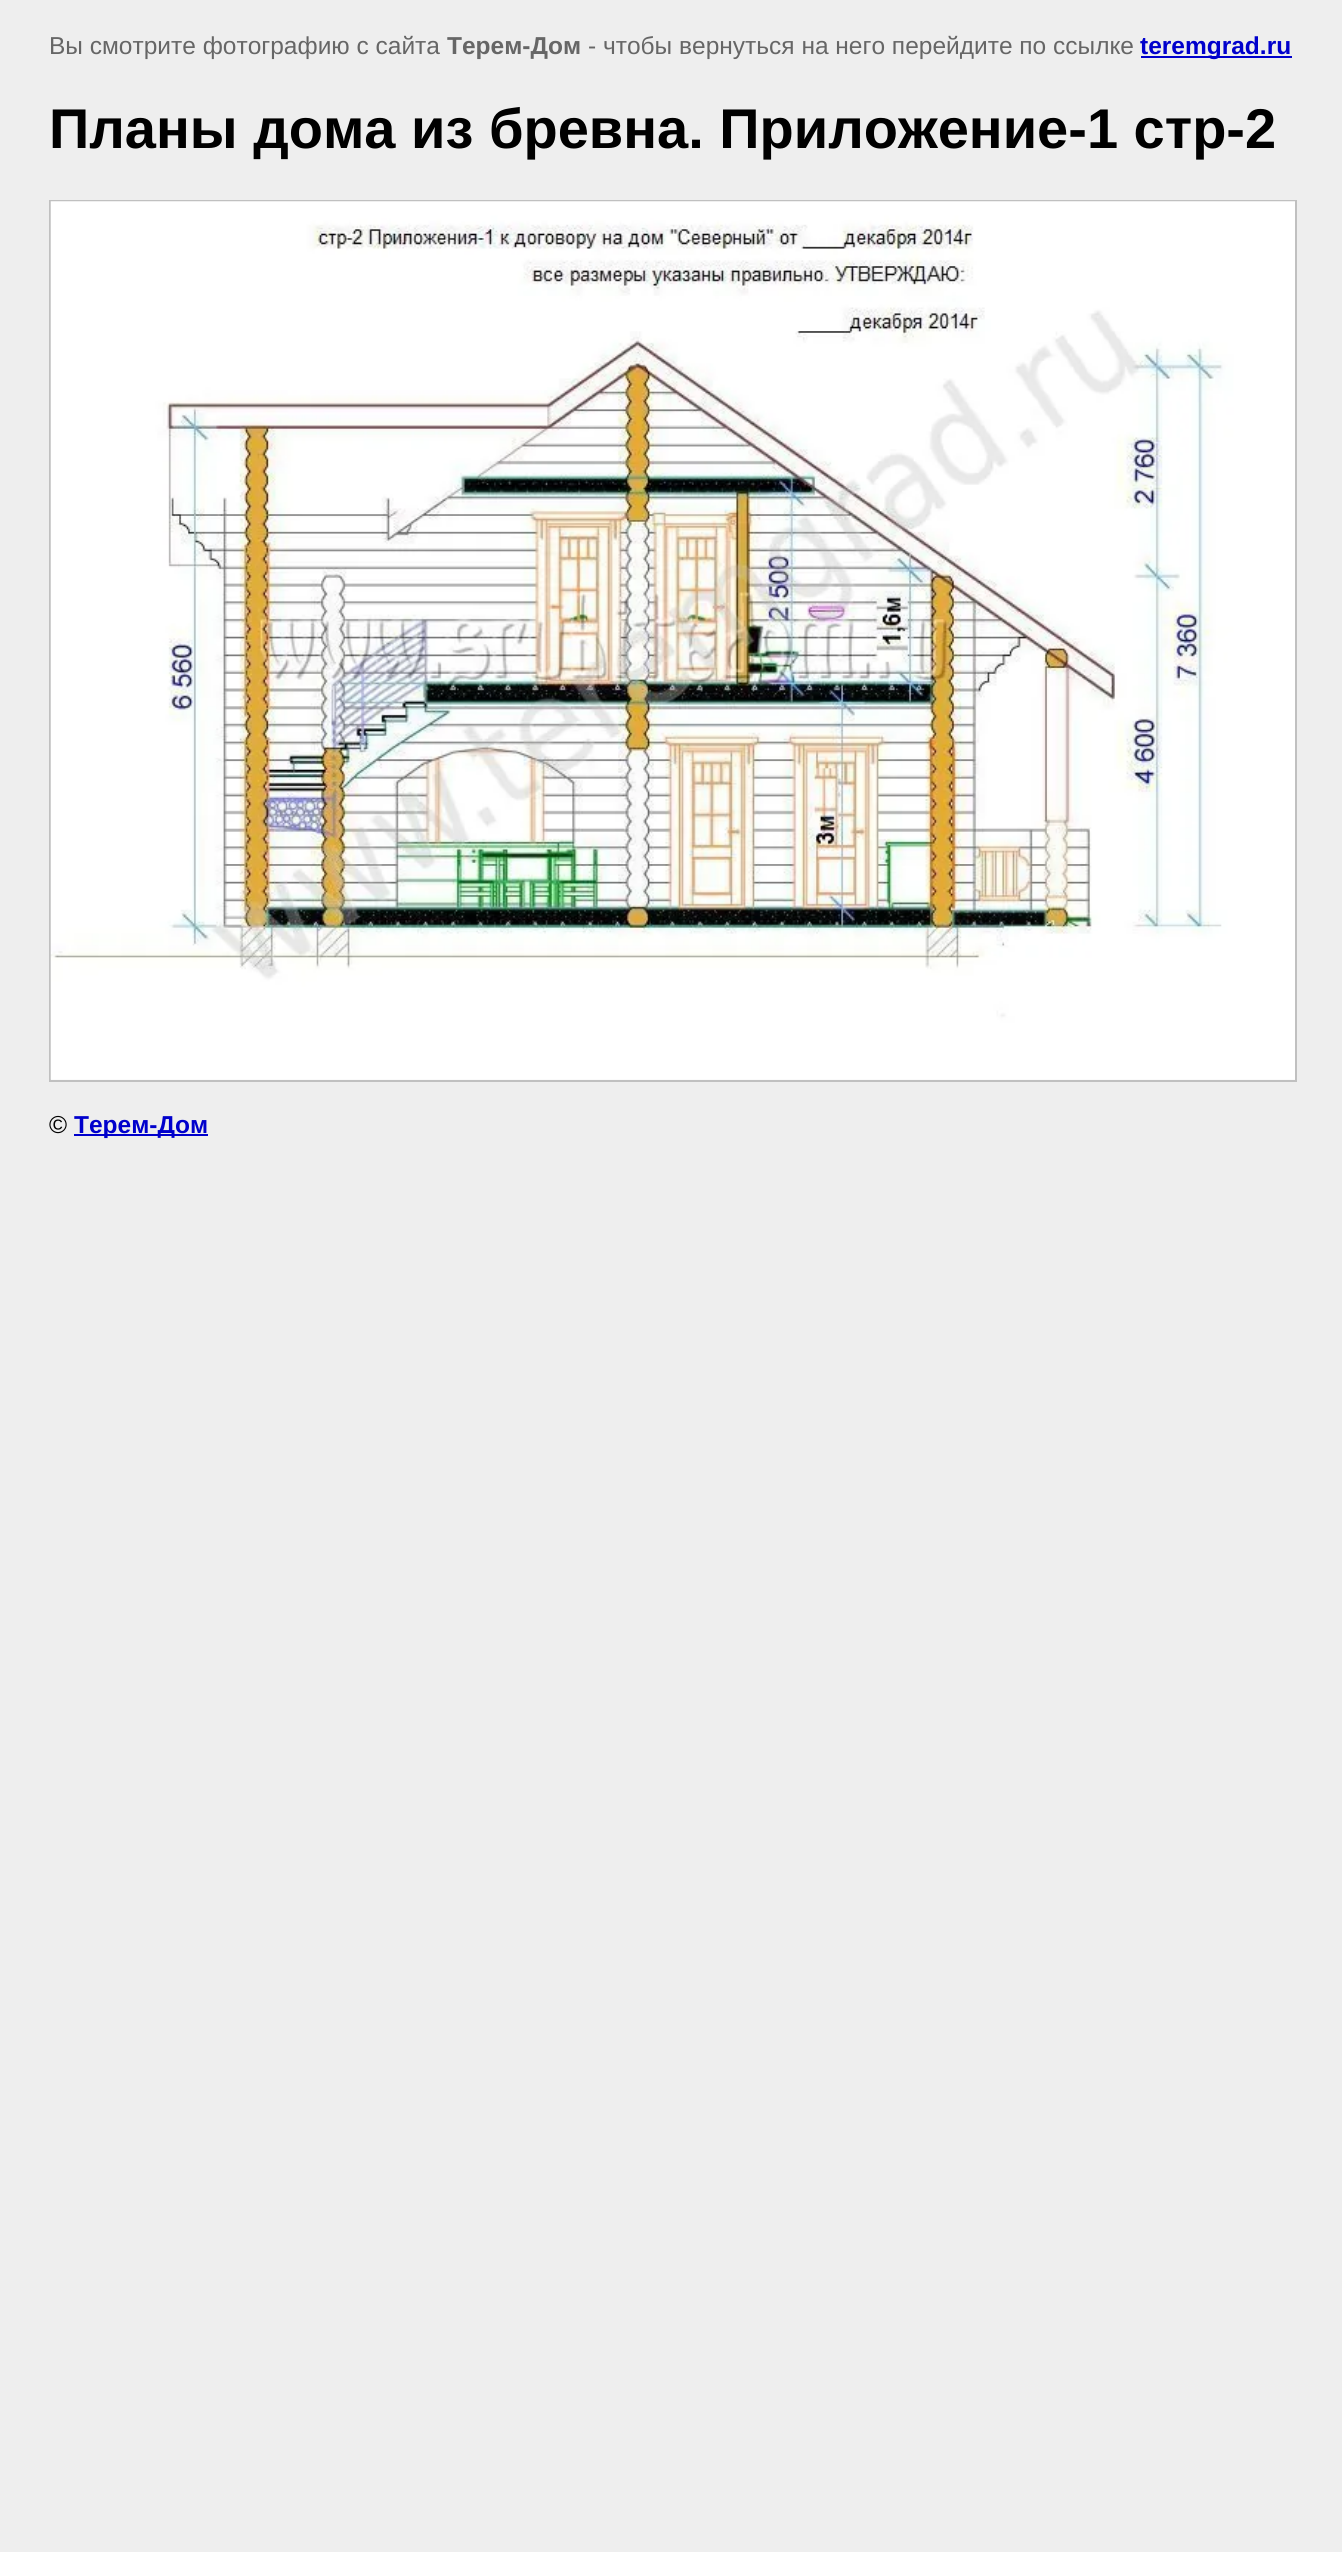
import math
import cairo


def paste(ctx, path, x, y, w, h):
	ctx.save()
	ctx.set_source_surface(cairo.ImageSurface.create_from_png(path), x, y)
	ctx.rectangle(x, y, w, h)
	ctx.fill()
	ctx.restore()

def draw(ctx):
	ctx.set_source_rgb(0.933, 0.933, 0.933)
	ctx.paint()
	ctx.select_font_face('Liberation Sans')
	ctx.set_font_size(24.5)
	ctx.set_source_rgb(0.4, 0.4, 0.4)
	ctx.move_to(49, 54)
	ctx.show_text('Вы смотрите фотографию с сайта')
	ctx.select_font_face('Liberation Sans', cairo.FONT_SLANT_NORMAL, cairo.FONT_WEIGHT_BOLD)
	ctx.move_to(447, 54)
	ctx.show_text('Терем-Дом')
	ctx.select_font_face('Liberation Sans')
	ctx.move_to(588, 54)
	ctx.show_text('- чтобы вернуться на него перейдите по ссылке')
	ctx.set_source_rgb(0, 0, 0.8)
	ctx.rectangle(1141, 56, 151, 2)
	ctx.fill()
	ctx.select_font_face('Liberation Sans', cairo.FONT_SLANT_NORMAL, cairo.FONT_WEIGHT_BOLD)
	ctx.move_to(1140, 54)
	ctx.show_text('teremgrad.ru')
	ctx.set_font_size(56)
	ctx.set_source_rgb(0, 0, 0)
	ctx.move_to(49, 148)
	ctx.show_text('Планы дома из бревна. Приложение-1 стр-2')
	ctx.rectangle(50, 201, 1246, 880)
	ctx.set_source_rgb(0.753, 0.753, 0.753)
	ctx.stroke()
	paste(ctx, 'media/1.png', 50, 201, 1245, 879)
	ctx.select_font_face('Liberation Sans')
	ctx.set_font_size(24.5)
	ctx.set_source_rgb(0, 0, 0)
	ctx.move_to(49, 1133)
	ctx.show_text('©')
	ctx.set_source_rgb(0, 0, 0.8)
	ctx.rectangle(74, 1134, 134, 2)
	ctx.fill()
	ctx.select_font_face('Liberation Sans', cairo.FONT_SLANT_NORMAL, cairo.FONT_WEIGHT_BOLD)
	ctx.move_to(74, 1133)
	ctx.show_text('Терем-Дом')


surface = cairo.ImageSurface(cairo.FORMAT_RGB24, 1342, 2552)
ctx = cairo.Context(surface)
options = cairo.FontOptions()
options.set_hint_metrics(cairo.HINT_METRICS_OFF)
options.set_hint_style(cairo.HINT_STYLE_NONE)
ctx.set_font_options(options)
ctx.set_miter_limit(4)
draw(ctx)
surface.write_to_png('image.png')
